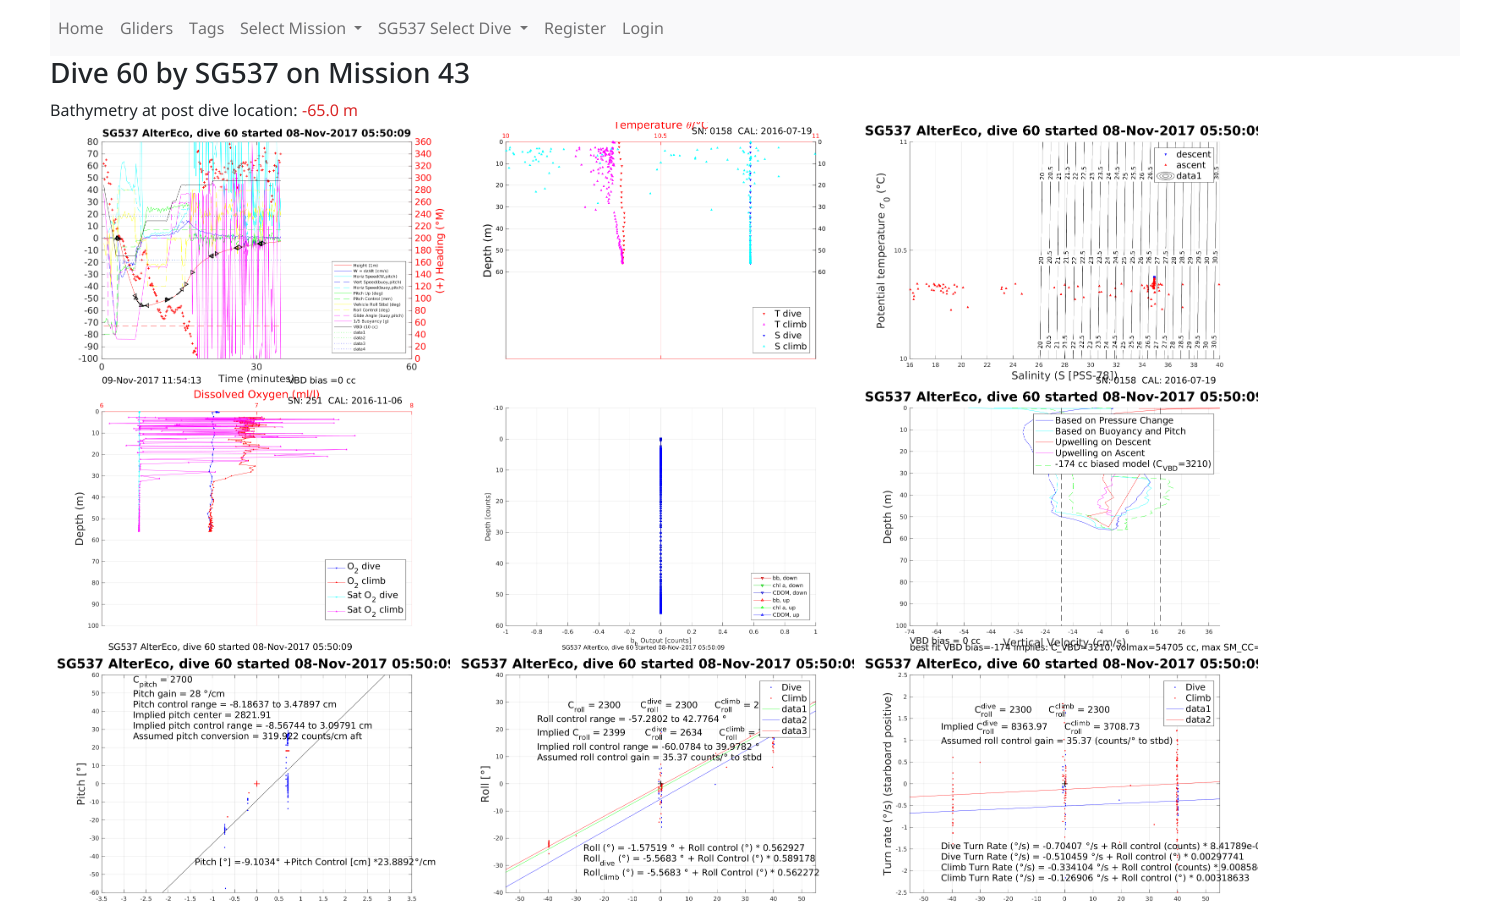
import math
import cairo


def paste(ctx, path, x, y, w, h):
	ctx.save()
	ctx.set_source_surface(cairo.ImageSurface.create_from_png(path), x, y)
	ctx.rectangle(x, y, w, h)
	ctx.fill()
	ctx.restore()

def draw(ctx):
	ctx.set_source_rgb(1, 1, 1)
	ctx.paint()
	ctx.set_source_rgb(0.973, 0.976, 0.98)
	ctx.rectangle(50, 0, 1410, 56)
	ctx.fill()
	ctx.select_font_face('Noto Sans')
	ctx.set_font_size(16)
	ctx.set_source_rgb(0.439, 0.439, 0.443)
	for x, y, s in [
		(58, 34, 'Home'),
		(120, 34, 'Gliders'),
		(189, 34, 'Tags'),
		(240, 34, 'Select Mission'),
	]:
		ctx.move_to(x, y)
		ctx.show_text(s)
	ctx.new_path()
	ctx.move_to(354, 26)
	ctx.line_to(362, 26)
	ctx.line_to(358, 30)
	ctx.close_path()
	ctx.fill()
	ctx.move_to(378, 34)
	ctx.show_text('SG537 Select Dive')
	ctx.new_path()
	ctx.move_to(520, 26)
	ctx.line_to(528, 26)
	ctx.line_to(524, 30)
	ctx.close_path()
	ctx.fill()
	ctx.move_to(544, 34)
	ctx.show_text('Register')
	ctx.move_to(622, 34)
	ctx.show_text('Login')
	ctx.select_font_face('Noto Sans Medium')
	ctx.set_font_size(28)
	ctx.set_source_rgb(0.129, 0.145, 0.161)
	ctx.move_to(50, 83)
	ctx.show_text('Dive 60 by SG537 on Mission 43')
	ctx.select_font_face('Noto Sans')
	ctx.set_font_size(16)
	ctx.move_to(50, 116)
	ctx.show_text('Bathymetry at post dive location:')
	ctx.set_source_rgb(0.851, 0.153, 0.153)
	ctx.move_to(302, 116)
	ctx.show_text('-65.0 m')
	paste(ctx, 'media/1.png', 78, 128, 368, 256)
	paste(ctx, 'media/2.png', 482, 122, 344, 238)
	paste(ctx, 'media/3.png', 865, 124, 393, 260)
	paste(ctx, 'media/4.png', 74, 389, 340, 263)
	paste(ctx, 'media/5.png', 484, 405, 334, 246)
	paste(ctx, 'media/6.png', 865, 390, 393, 263)
	paste(ctx, 'media/7.png', 57, 657, 393, 245)
	paste(ctx, 'media/8.png', 461, 657, 393, 245)
	paste(ctx, 'media/9.png', 865, 657, 393, 245)


surface = cairo.ImageSurface(cairo.FORMAT_RGB24, 1510, 904)
ctx = cairo.Context(surface)
options = cairo.FontOptions()
options.set_hint_metrics(cairo.HINT_METRICS_OFF)
options.set_hint_style(cairo.HINT_STYLE_NONE)
ctx.set_font_options(options)
ctx.set_miter_limit(4)
draw(ctx)
surface.write_to_png('image.png')
